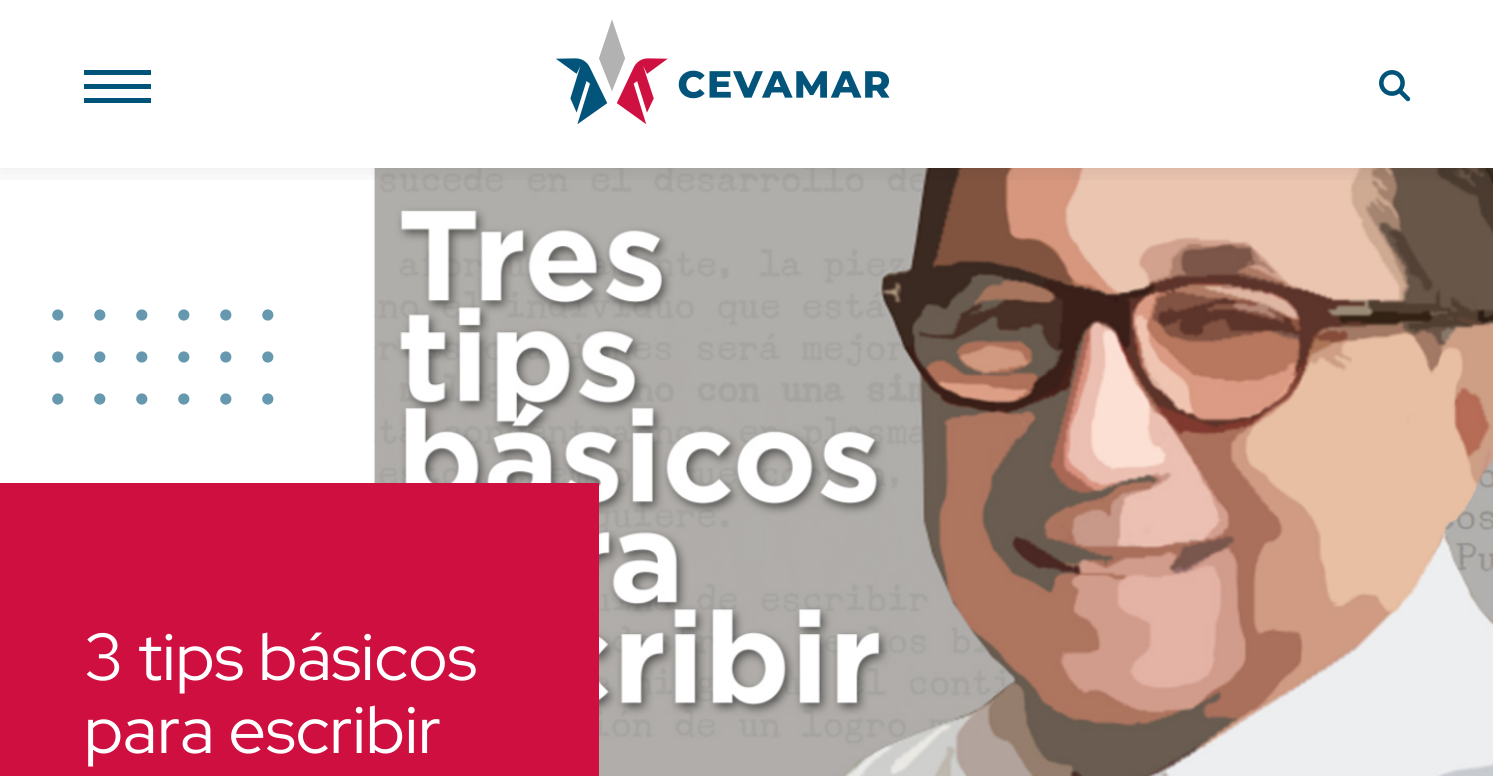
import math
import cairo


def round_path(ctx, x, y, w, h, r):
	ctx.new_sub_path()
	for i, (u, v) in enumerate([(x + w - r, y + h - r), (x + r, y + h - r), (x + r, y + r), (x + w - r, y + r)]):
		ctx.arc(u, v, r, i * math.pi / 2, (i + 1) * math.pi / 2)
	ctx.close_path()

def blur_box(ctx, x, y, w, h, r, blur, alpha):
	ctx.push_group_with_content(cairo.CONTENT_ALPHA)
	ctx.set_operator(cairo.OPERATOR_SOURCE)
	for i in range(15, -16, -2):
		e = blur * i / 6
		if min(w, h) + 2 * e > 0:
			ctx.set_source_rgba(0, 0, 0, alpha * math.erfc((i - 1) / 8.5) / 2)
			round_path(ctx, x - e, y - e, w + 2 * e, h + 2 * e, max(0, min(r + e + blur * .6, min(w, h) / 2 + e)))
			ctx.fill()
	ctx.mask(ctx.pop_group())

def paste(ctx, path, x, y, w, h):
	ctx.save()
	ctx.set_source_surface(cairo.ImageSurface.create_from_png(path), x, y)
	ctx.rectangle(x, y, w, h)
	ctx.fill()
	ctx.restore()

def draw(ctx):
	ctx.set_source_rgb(1, 1, 1)
	ctx.paint()
	paste(ctx, 'media/3.png', 373, 168, 1120, 608)
	ctx.save()
	ctx.rectangle(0, 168, 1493, 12)
	ctx.clip()
	ctx.set_source_rgb(0, 0, 0)
	blur_box(ctx, 0, 0, 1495, 168, 0, 14, 0.1)
	ctx.restore()
	ctx.set_source_rgb(0, 0.329, 0.478)
	ctx.rectangle(84, 70, 67, 5)
	ctx.rectangle(84, 84, 67, 5)
	ctx.rectangle(84, 98, 67, 5)
	ctx.fill()
	paste(ctx, 'media/1.png', 556, 19, 334, 105)
	paste(ctx, 'media/2.png', 1379, 70, 32, 32)
	ctx.new_path()
	ctx.move_to(57.8, 315)
	ctx.line_to(268.1, 315)
	ctx.set_source_rgb(0.4, 0.596, 0.686)
	ctx.set_line_width(11.2)
	ctx.set_line_cap(cairo.LINE_CAP_ROUND)
	ctx.set_dash([0, 42])
	ctx.stroke()
	ctx.new_path()
	ctx.move_to(57.8, 357)
	ctx.line_to(268.1, 357)
	ctx.stroke()
	ctx.new_path()
	ctx.move_to(57.8, 399)
	ctx.line_to(268.1, 399)
	ctx.stroke()
	ctx.set_source_rgb(0.808, 0.059, 0.251)
	ctx.rectangle(0, 483, 599, 293)
	ctx.fill()
	ctx.select_font_face('Red Hat Display')
	ctx.set_font_size(66.25)
	ctx.set_source_rgb(1, 1, 1)
	ctx.move_to(84, 680)
	ctx.show_text('3 tips básicos')
	ctx.move_to(84, 753)
	ctx.show_text('para escribir')


surface = cairo.ImageSurface(cairo.FORMAT_RGB24, 1493, 776)
ctx = cairo.Context(surface)
options = cairo.FontOptions()
options.set_hint_metrics(cairo.HINT_METRICS_OFF)
options.set_hint_style(cairo.HINT_STYLE_NONE)
ctx.set_font_options(options)
ctx.set_miter_limit(4)
draw(ctx)
surface.write_to_png('image.png')
